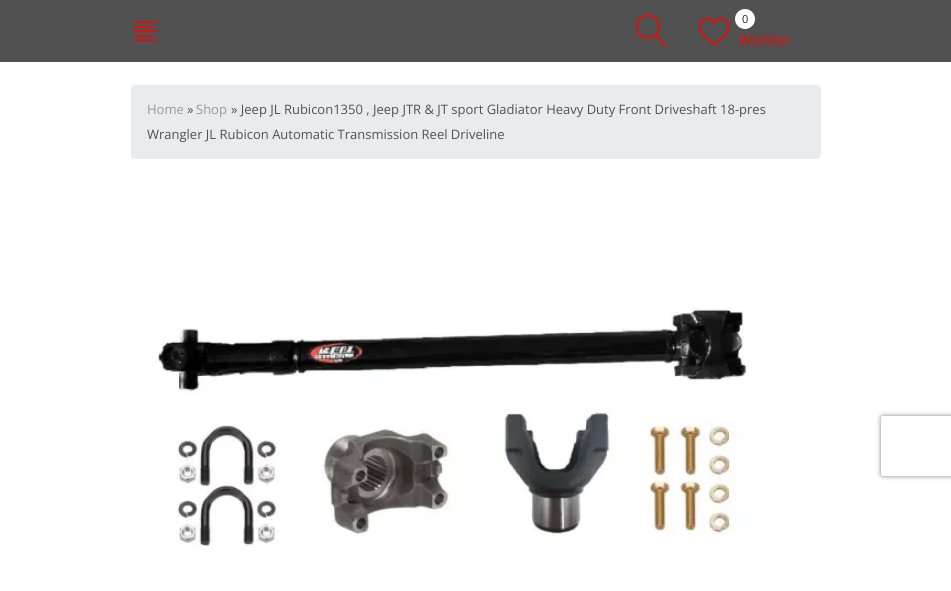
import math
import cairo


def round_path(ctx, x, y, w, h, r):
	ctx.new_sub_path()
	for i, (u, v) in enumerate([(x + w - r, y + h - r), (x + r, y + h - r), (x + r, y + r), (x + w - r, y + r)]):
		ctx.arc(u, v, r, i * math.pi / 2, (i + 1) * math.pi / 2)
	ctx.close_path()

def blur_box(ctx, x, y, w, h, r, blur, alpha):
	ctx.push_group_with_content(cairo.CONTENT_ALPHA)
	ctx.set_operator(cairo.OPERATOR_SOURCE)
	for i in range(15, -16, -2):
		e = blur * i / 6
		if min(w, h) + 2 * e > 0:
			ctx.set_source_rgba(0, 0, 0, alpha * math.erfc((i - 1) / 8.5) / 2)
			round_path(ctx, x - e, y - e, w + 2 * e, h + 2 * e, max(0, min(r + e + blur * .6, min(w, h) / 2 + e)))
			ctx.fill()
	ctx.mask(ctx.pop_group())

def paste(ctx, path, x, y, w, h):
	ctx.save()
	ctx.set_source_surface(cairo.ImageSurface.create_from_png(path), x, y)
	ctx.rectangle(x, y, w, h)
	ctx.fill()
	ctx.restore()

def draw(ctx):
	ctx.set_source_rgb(1, 1, 1)
	ctx.paint()
	ctx.set_source_rgb(0.318, 0.318, 0.318)
	ctx.rectangle(0, 0, 951, 62)
	ctx.fill()
	paste(ctx, 'media/1.png', 134, 21, 24, 20)
	paste(ctx, 'media/2.png', 636, 14, 31, 33)
	paste(ctx, 'media/3.png', 699, 17, 31, 28)
	ctx.set_source_rgb(1, 1, 1)
	ctx.arc(745, 19, 10, 0, 2 * math.pi)
	ctx.fill()
	ctx.select_font_face('Open Sans')
	ctx.set_font_size(11)
	ctx.set_source_rgb(0.133, 0.133, 0.133)
	ctx.move_to(742, 23)
	ctx.show_text('0')
	ctx.set_font_size(14)
	ctx.set_source_rgb(0.988, 0, 0)
	ctx.move_to(739, 45)
	ctx.show_text('Wishlist')
	ctx.set_source_rgb(0.914, 0.925, 0.937)
	round_path(ctx, 131, 85, 690, 74, 4)
	ctx.fill()
	ctx.set_font_size(13)
	ctx.set_source_rgb(0.6, 0.6, 0.6)
	ctx.move_to(147, 114)
	ctx.show_text('Home')
	ctx.set_source_rgb(0.318, 0.318, 0.318)
	ctx.move_to(187, 114)
	ctx.show_text('»')
	ctx.set_source_rgb(0.6, 0.6, 0.6)
	ctx.move_to(196, 114)
	ctx.show_text('Shop')
	ctx.set_source_rgb(0.318, 0.318, 0.318)
	ctx.move_to(231, 114)
	ctx.show_text('» Jeep JL Rubicon1350 , Jeep JTR & JT sport Gladiator Heavy Duty Front Driveshaft 18-pres')
	ctx.move_to(147, 139)
	ctx.show_text('Wrangler JL Rubicon Automatic Transmission Reel Driveline')
	paste(ctx, 'media/4.png', 157, 307, 592, 242)
	ctx.save()
	ctx.set_fill_rule(cairo.FILL_RULE_EVEN_ODD)
	ctx.new_path()
	ctx.move_to(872, 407)
	ctx.line_to(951, 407)
	ctx.line_to(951, 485)
	ctx.line_to(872, 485)
	ctx.close_path()
	ctx.move_to(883, 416)
	ctx.line_to(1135, 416)
	ctx.curve_to(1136, 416, 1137, 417, 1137, 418)
	ctx.line_to(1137, 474)
	ctx.curve_to(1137, 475, 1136, 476, 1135, 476)
	ctx.line_to(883, 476)
	ctx.curve_to(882, 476, 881, 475, 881, 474)
	ctx.line_to(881, 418)
	ctx.curve_to(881, 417, 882, 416, 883, 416)
	ctx.close_path()
	ctx.clip()
	ctx.set_source_rgb(0.502, 0.502, 0.502)
	blur_box(ctx, 881, 416, 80, 60, 2, 2.5, 1)
	ctx.restore()


surface = cairo.ImageSurface(cairo.FORMAT_RGB24, 951, 591)
ctx = cairo.Context(surface)
options = cairo.FontOptions()
options.set_hint_metrics(cairo.HINT_METRICS_OFF)
options.set_hint_style(cairo.HINT_STYLE_NONE)
ctx.set_font_options(options)
ctx.set_miter_limit(4)
draw(ctx)
surface.write_to_png('image.png')
